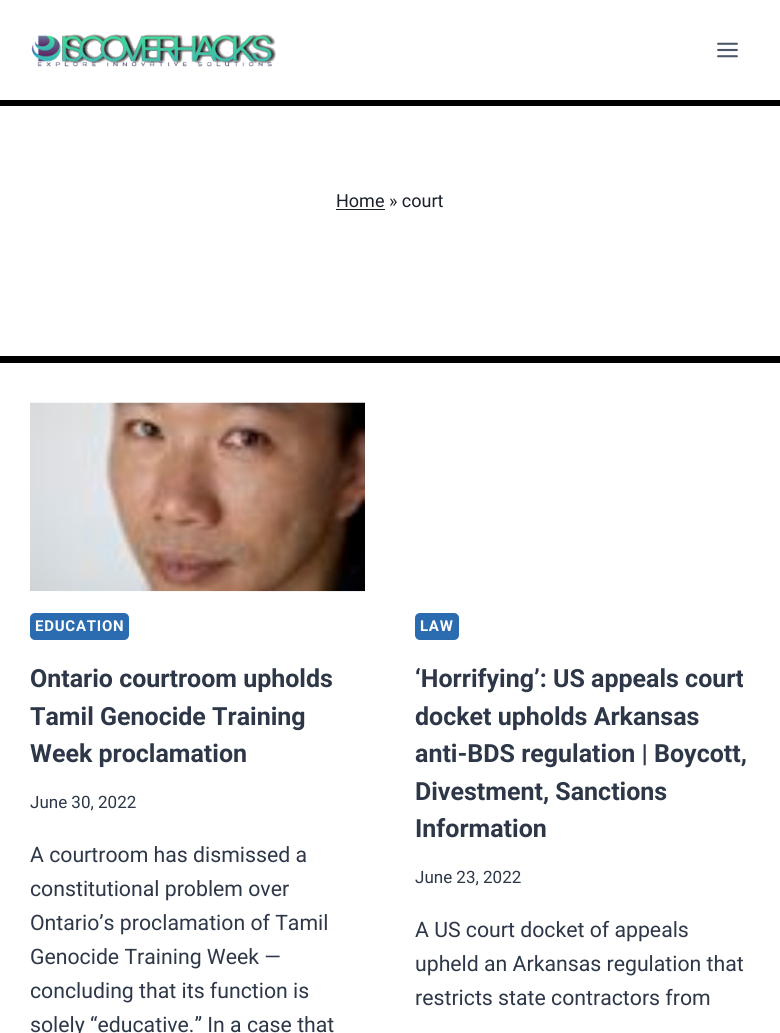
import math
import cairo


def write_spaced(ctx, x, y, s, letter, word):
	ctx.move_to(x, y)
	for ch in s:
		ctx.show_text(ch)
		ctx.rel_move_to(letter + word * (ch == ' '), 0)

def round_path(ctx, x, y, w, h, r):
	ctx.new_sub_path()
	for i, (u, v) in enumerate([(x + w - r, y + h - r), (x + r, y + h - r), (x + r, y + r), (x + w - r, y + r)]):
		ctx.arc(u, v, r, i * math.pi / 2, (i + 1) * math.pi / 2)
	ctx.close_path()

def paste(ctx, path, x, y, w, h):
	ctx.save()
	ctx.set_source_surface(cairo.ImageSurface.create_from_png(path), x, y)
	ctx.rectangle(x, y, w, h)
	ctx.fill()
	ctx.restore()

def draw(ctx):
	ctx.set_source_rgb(1, 1, 1)
	ctx.paint()
	paste(ctx, 'media/1.png', 31, 34, 245, 33)
	paste(ctx, 'media/2.png', 717, 42, 21, 16)
	ctx.set_source_rgb(0, 0, 0)
	ctx.rectangle(0, 100, 780, 6)
	ctx.fill()
	ctx.rectangle(0, 356, 780, 7)
	ctx.fill()
	ctx.select_font_face('Roboto')
	ctx.set_font_size(18)
	ctx.set_source_rgb(0.102, 0.125, 0.173)
	ctx.move_to(336, 207)
	ctx.show_text('Home » court')
	ctx.rectangle(336, 209, 49, 1)
	ctx.fill()
	paste(ctx, 'media/3.png', 30, 402, 335, 190)
	ctx.set_source_rgb(0.169, 0.424, 0.69)
	round_path(ctx, 30, 613, 99, 27, 5)
	ctx.fill()
	ctx.select_font_face('Roboto', cairo.FONT_SLANT_NORMAL, cairo.FONT_WEIGHT_BOLD)
	ctx.set_font_size(15)
	ctx.set_source_rgb(1, 1, 1)
	write_spaced(ctx, 35, 631, 'EDUCATION', 0.75, 0)
	ctx.set_font_size(25)
	ctx.set_source_rgb(0.176, 0.216, 0.282)
	for x, y, s in [
		(30, 687, 'Ontario courtroom upholds'),
		(30, 725, 'Tamil Genocide Training'),
		(30, 762, 'Week proclamation'),
	]:
		ctx.move_to(x, y)
		ctx.show_text(s)
	ctx.select_font_face('Roboto')
	ctx.set_font_size(17)
	ctx.move_to(30, 808)
	ctx.show_text('June 30, 2022')
	ctx.set_font_size(21.25)
	for x, y, s in [
		(30, 862, 'A courtroom has dismissed a'),
		(30, 896, 'constitutional problem over'),
		(30, 930, 'Ontario’s proclamation of Tamil'),
		(30, 964, 'Genocide Training Week —'),
		(30, 998, 'concluding that its function is'),
		(30, 1032, 'solely “educative.” In a case that'),
	]:
		ctx.move_to(x, y)
		ctx.show_text(s)
	ctx.set_source_rgb(0.169, 0.424, 0.69)
	round_path(ctx, 415, 613, 44, 27, 5)
	ctx.fill()
	ctx.select_font_face('Roboto', cairo.FONT_SLANT_NORMAL, cairo.FONT_WEIGHT_BOLD)
	ctx.set_font_size(15)
	ctx.set_source_rgb(1, 1, 1)
	write_spaced(ctx, 420, 631, 'LAW', 0.75, 0)
	ctx.set_font_size(25)
	ctx.set_source_rgb(0.176, 0.216, 0.282)
	for x, y, s in [
		(415, 687, '‘Horrifying’: US appeals court'),
		(415, 725, 'docket upholds Arkansas'),
		(415, 762, 'anti-BDS regulation | Boycott,'),
		(415, 800, 'Divestment, Sanctions'),
		(415, 837, 'Information'),
	]:
		ctx.move_to(x, y)
		ctx.show_text(s)
	ctx.select_font_face('Roboto')
	ctx.set_font_size(17)
	ctx.move_to(415, 883)
	ctx.show_text('June 23, 2022')
	ctx.set_font_size(21.25)
	for x, y, s in [
		(415, 937, 'A US court docket of appeals'),
		(415, 971, 'upheld an Arkansas regulation that'),
		(415, 1005, 'restricts state contractors from'),
	]:
		ctx.move_to(x, y)
		ctx.show_text(s)


surface = cairo.ImageSurface(cairo.FORMAT_RGB24, 780, 1033)
ctx = cairo.Context(surface)
options = cairo.FontOptions()
options.set_hint_metrics(cairo.HINT_METRICS_OFF)
options.set_hint_style(cairo.HINT_STYLE_NONE)
ctx.set_font_options(options)
ctx.set_miter_limit(4)
draw(ctx)
surface.write_to_png('image.png')
